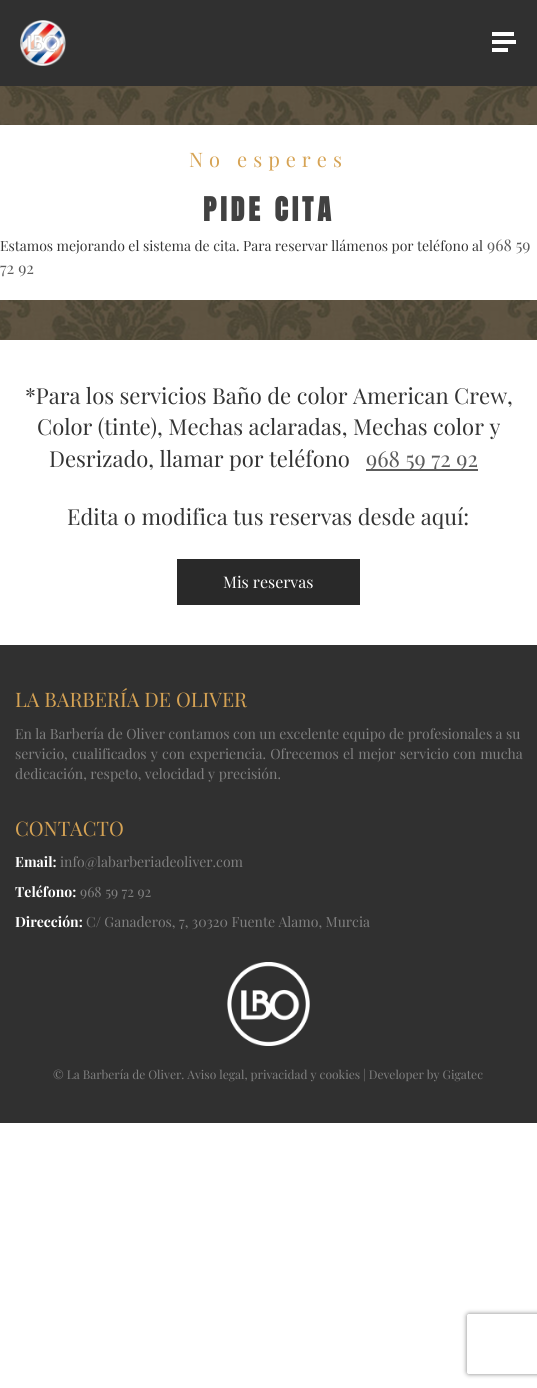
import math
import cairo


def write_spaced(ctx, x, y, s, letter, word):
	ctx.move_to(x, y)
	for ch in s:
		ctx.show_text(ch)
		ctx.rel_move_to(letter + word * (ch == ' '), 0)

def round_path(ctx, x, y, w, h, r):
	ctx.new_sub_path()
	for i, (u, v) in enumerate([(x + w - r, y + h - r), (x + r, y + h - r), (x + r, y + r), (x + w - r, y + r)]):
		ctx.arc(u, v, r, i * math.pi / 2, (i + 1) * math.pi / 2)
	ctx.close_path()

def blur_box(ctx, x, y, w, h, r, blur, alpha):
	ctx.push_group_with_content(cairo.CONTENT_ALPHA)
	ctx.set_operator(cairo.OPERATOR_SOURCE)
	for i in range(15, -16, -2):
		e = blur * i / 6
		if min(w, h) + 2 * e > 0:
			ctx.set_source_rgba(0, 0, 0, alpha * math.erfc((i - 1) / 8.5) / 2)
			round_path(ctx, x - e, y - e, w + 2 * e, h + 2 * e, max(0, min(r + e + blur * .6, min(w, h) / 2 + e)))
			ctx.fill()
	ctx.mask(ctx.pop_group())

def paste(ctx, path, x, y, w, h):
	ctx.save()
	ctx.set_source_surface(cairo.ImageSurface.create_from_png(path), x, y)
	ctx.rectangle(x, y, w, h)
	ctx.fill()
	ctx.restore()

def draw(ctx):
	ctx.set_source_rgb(1, 1, 1)
	ctx.paint()
	ctx.set_source_rgb(0.188, 0.188, 0.188)
	ctx.rectangle(0, 0, 537, 86)
	ctx.fill()
	paste(ctx, 'media/1.png', 20, 20, 46, 46)
	ctx.set_source_rgb(1, 1, 1)
	ctx.rectangle(492, 40, 24, 4)
	ctx.rectangle(492, 32, 22, 4)
	ctx.rectangle(492, 48, 16, 4)
	ctx.fill()
	paste(ctx, 'media/2.png', 0, 86, 537, 254)
	ctx.rectangle(0, 125, 537, 175)
	ctx.fill()
	ctx.select_font_face('Playfair Display')
	ctx.set_font_size(20)
	ctx.set_source_rgb(0.839, 0.639, 0.329)
	write_spaced(ctx, 189, 167, 'No esperes', 6, 0)
	ctx.select_font_face('Anton', cairo.FONT_SLANT_NORMAL, cairo.FONT_WEIGHT_BOLD)
	ctx.set_font_size(28)
	ctx.set_source_rgb(0.255, 0.255, 0.255)
	write_spaced(ctx, 203, 221, 'PIDE CITA', 4, 0)
	ctx.select_font_face('Playfair Display')
	ctx.set_font_size(14)
	ctx.set_source_rgb(0.2, 0.2, 0.2)
	ctx.move_to(0, 251)
	ctx.show_text('Estamos mejorando el sistema de cita. Para reservar llámenos por teléfono al')
	ctx.set_font_size(16)
	ctx.set_source_rgb(0.361, 0.361, 0.361)
	ctx.move_to(487, 251)
	ctx.show_text('968 59')
	ctx.move_to(0, 274)
	ctx.show_text('72 92')
	ctx.set_font_size(22)
	ctx.set_source_rgb(0.2, 0.2, 0.2)
	for x, y, s in [
		(25, 404, '*Para los servicios Baño de color American Crew,'),
		(37, 435, 'Color (tinte), Mechas aclaradas, Mechas color y'),
		(49, 467, 'Desrizado, llamar por teléfono'),
	]:
		ctx.move_to(x, y)
		ctx.show_text(s)
	ctx.set_source_rgb(0.361, 0.361, 0.361)
	ctx.rectangle(366, 469, 112, 2)
	ctx.fill()
	ctx.move_to(366, 467)
	ctx.show_text('968 59 72 92')
	ctx.set_source_rgb(0.2, 0.2, 0.2)
	ctx.move_to(67, 525)
	ctx.show_text('Edita o modifica tus reservas desde aquí:')
	ctx.set_source_rgb(0.161, 0.161, 0.161)
	ctx.rectangle(177, 559, 183, 46)
	ctx.fill()
	ctx.set_font_size(16)
	ctx.set_source_rgb(1, 1, 1)
	ctx.move_to(223, 588)
	ctx.show_text('Mis reservas')
	ctx.set_source_rgb(0.188, 0.188, 0.188)
	ctx.rectangle(0, 645, 537, 478)
	ctx.fill()
	ctx.set_font_size(20)
	ctx.set_source_rgb(0.839, 0.639, 0.329)
	ctx.move_to(15, 707)
	ctx.show_text('LA BARBERÍA DE OLIVER')
	ctx.set_font_size(14)
	ctx.set_source_rgb(0.502, 0.502, 0.502)
	ctx.move_to(15, 739)
	ctx.show_text('En la Barbería de Oliver contamos con un excelente equipo de profesionales a su')
	write_spaced(ctx, 15, 759, 'servicio, cualificados y con experiencia. Ofrecemos el mejor servicio con mucha', 0, 0.75)
	ctx.move_to(15, 779)
	ctx.show_text('dedicación, respeto, velocidad y precisión.')
	ctx.set_font_size(20)
	ctx.set_source_rgb(0.839, 0.639, 0.329)
	ctx.move_to(15, 836)
	ctx.show_text('CONTACTO')
	ctx.select_font_face('Playfair Display', cairo.FONT_SLANT_NORMAL, cairo.FONT_WEIGHT_BOLD)
	ctx.set_font_size(14)
	ctx.set_source_rgb(1, 1, 1)
	ctx.move_to(15, 867)
	ctx.show_text('Email:')
	ctx.select_font_face('Playfair Display')
	ctx.set_source_rgb(0.502, 0.502, 0.502)
	ctx.move_to(60, 867)
	ctx.show_text('info@labarberiadeoliver.com')
	ctx.select_font_face('Playfair Display', cairo.FONT_SLANT_NORMAL, cairo.FONT_WEIGHT_BOLD)
	ctx.set_source_rgb(1, 1, 1)
	ctx.move_to(15, 897)
	ctx.show_text('Teléfono:')
	ctx.select_font_face('Playfair Display')
	ctx.set_source_rgb(0.502, 0.502, 0.502)
	ctx.move_to(80, 897)
	ctx.show_text('968 59 72 92')
	ctx.select_font_face('Playfair Display', cairo.FONT_SLANT_NORMAL, cairo.FONT_WEIGHT_BOLD)
	ctx.set_source_rgb(1, 1, 1)
	ctx.move_to(15, 927)
	ctx.show_text('Dirección:')
	ctx.select_font_face('Playfair Display')
	ctx.set_source_rgb(0.502, 0.502, 0.502)
	ctx.move_to(86, 927)
	ctx.show_text('C/ Ganaderos, 7, 30320 Fuente Alamo, Murcia')
	paste(ctx, 'media/3.png', 227, 962, 83, 84)
	ctx.set_font_size(12)
	ctx.move_to(53, 1079)
	ctx.show_text('© La Barbería de Oliver. Aviso legal, privacidad y cookies | Developer by Gigatec')
	ctx.save()
	ctx.set_fill_rule(cairo.FILL_RULE_EVEN_ODD)
	ctx.new_path()
	ctx.move_to(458, 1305)
	ctx.line_to(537, 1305)
	ctx.line_to(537, 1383)
	ctx.line_to(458, 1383)
	ctx.close_path()
	ctx.move_to(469, 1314)
	ctx.line_to(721, 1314)
	ctx.curve_to(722, 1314, 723, 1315, 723, 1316)
	ctx.line_to(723, 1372)
	ctx.curve_to(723, 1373, 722, 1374, 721, 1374)
	ctx.line_to(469, 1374)
	ctx.curve_to(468, 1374, 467, 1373, 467, 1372)
	ctx.line_to(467, 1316)
	ctx.curve_to(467, 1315, 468, 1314, 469, 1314)
	ctx.close_path()
	ctx.clip()
	ctx.set_source_rgb(0.502, 0.502, 0.502)
	blur_box(ctx, 467, 1314, 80, 60, 2, 2.5, 1)
	ctx.restore()


surface = cairo.ImageSurface(cairo.FORMAT_RGB24, 537, 1388)
ctx = cairo.Context(surface)
options = cairo.FontOptions()
options.set_hint_metrics(cairo.HINT_METRICS_OFF)
options.set_hint_style(cairo.HINT_STYLE_NONE)
ctx.set_font_options(options)
ctx.set_miter_limit(4)
draw(ctx)
surface.write_to_png('image.png')
